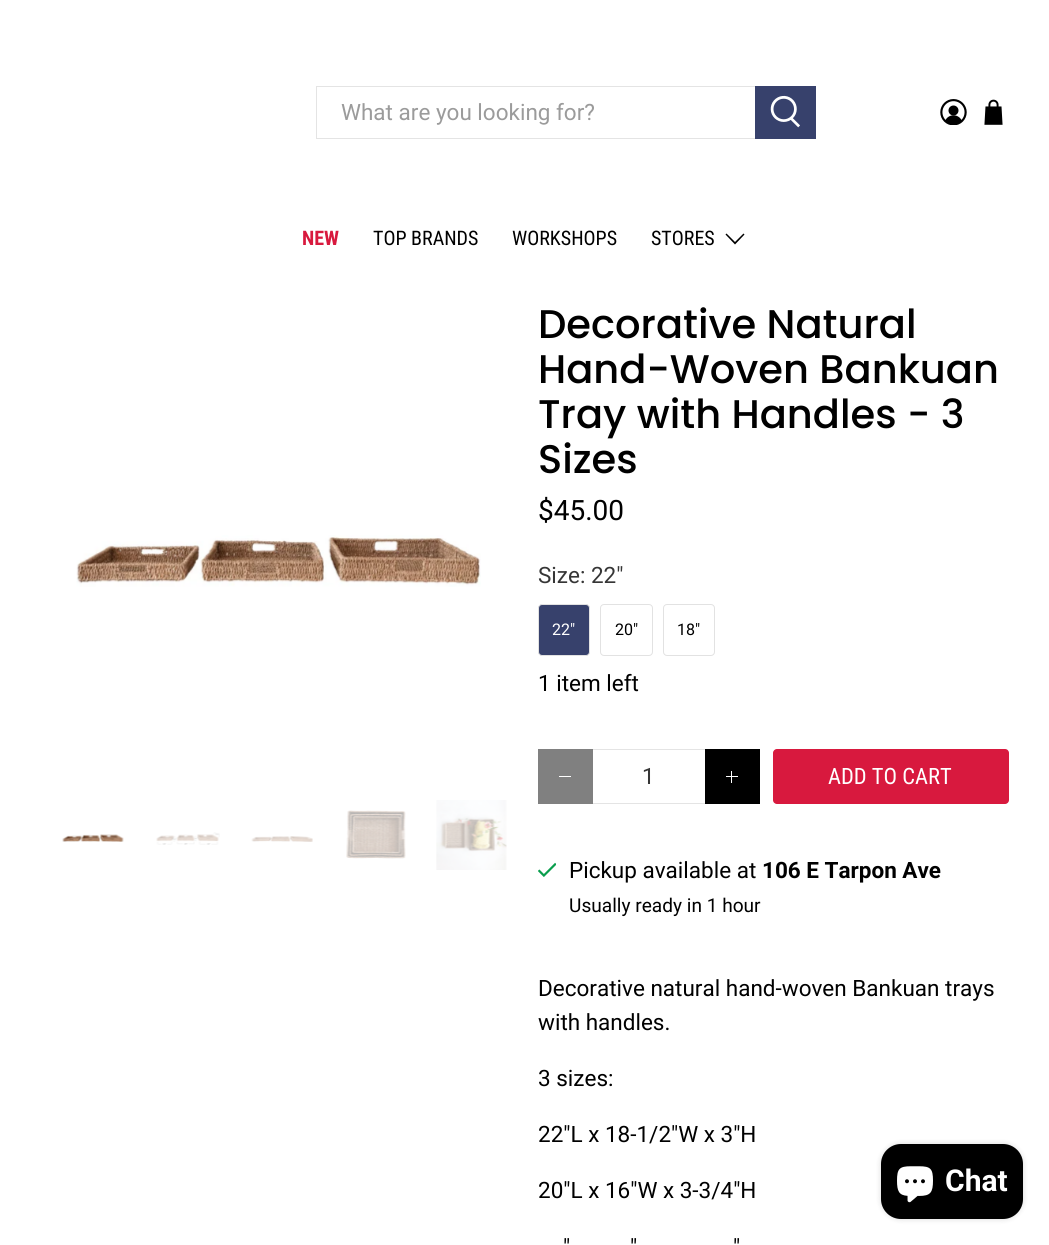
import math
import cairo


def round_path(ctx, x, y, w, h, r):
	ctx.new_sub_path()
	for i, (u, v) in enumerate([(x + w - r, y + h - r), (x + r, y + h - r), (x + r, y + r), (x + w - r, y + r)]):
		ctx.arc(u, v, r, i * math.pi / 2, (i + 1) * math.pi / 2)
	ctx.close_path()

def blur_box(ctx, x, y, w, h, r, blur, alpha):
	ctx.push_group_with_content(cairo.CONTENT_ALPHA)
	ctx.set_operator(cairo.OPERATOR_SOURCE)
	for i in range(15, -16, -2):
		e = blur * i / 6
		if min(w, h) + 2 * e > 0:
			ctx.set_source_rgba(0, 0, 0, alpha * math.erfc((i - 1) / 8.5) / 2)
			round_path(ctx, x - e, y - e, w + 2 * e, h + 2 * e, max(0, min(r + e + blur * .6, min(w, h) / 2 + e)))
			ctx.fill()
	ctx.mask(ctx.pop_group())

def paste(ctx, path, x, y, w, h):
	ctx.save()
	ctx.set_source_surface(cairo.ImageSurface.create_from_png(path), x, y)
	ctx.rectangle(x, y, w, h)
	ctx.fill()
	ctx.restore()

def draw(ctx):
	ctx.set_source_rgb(1, 1, 1)
	ctx.paint()
	ctx.rectangle(316.5, 86.5, 439, 52)
	ctx.set_source_rgb(0.894, 0.894, 0.894)
	ctx.set_line_width(1)
	ctx.stroke()
	ctx.select_font_face('Roboto')
	ctx.set_font_size(22.5)
	ctx.set_source_rgb(0.608, 0.608, 0.608)
	ctx.move_to(341, 120)
	ctx.show_text('What are you looking for?')
	ctx.set_source_rgb(0.216, 0.255, 0.424)
	ctx.rectangle(755, 86, 61, 53)
	ctx.fill()
	paste(ctx, 'media/1.png', 770, 95, 30, 33)
	paste(ctx, 'media/2.png', 940, 99, 27, 26)
	paste(ctx, 'media/3.png', 984, 99, 19, 26)
	ctx.select_font_face('Roboto Condensed', cairo.FONT_SLANT_NORMAL, cairo.FONT_WEIGHT_BOLD)
	ctx.set_font_size(20)
	ctx.set_source_rgb(0.847, 0.098, 0.243)
	ctx.move_to(302, 245)
	ctx.show_text('NEW')
	ctx.select_font_face('Roboto Condensed')
	ctx.set_source_rgb(0, 0, 0)
	for x, y, s in [
		(373, 245, 'TOP BRANDS'),
		(512, 245, 'WORKSHOPS'),
		(651, 245, 'STORES'),
	]:
		ctx.move_to(x, y)
		ctx.show_text(s)
	ctx.new_path()
	ctx.move_to(735, 244.5)
	ctx.line_to(725.5, 234.5)
	ctx.line_to(726.5, 233.5)
	ctx.line_to(735, 242)
	ctx.line_to(743.5, 233.5)
	ctx.line_to(744.5, 234.5)
	ctx.close_path()
	ctx.fill()
	paste(ctx, 'media/4.png', 76, 535, 405, 52)
	paste(ctx, 'media/5.png', 62, 834, 62, 8)
	paste(ctx, 'media/6.png', 156, 832, 64, 13)
	paste(ctx, 'media/7.png', 251, 836, 62, 6)
	paste(ctx, 'media/8.png', 346, 810, 60, 49)
	paste(ctx, 'media/9.png', 436, 800, 71, 70)
	ctx.select_font_face('Poppins Medium')
	ctx.set_font_size(40)
	for x, y, s in [
		(538, 338, 'Decorative Natural'),
		(538, 383, 'Hand-Woven Bankuan'),
		(538, 428, 'Tray with Handles - 3'),
		(538, 473, 'Sizes'),
	]:
		ctx.move_to(x, y)
		ctx.show_text(s)
	ctx.select_font_face('Roboto')
	ctx.set_font_size(28)
	ctx.move_to(538, 520)
	ctx.show_text('$45.00')
	ctx.set_font_size(22.5)
	ctx.set_source_rgb(0.212, 0.212, 0.212)
	ctx.move_to(538, 583)
	ctx.show_text('Size: 22"')
	ctx.set_source_rgb(0.216, 0.255, 0.424)
	round_path(ctx, 538.5, 604.5, 51, 51, 3.5)
	ctx.fill_preserve()
	ctx.set_source_rgb(0.886, 0.886, 0.886)
	ctx.stroke()
	ctx.set_font_size(16)
	ctx.set_source_rgb(1, 1, 1)
	ctx.move_to(552, 635)
	ctx.show_text('22"')
	round_path(ctx, 600.5, 604.5, 52, 51, 3.5)
	ctx.set_source_rgb(0.886, 0.886, 0.886)
	ctx.stroke()
	ctx.set_source_rgb(0, 0, 0)
	ctx.move_to(615, 635)
	ctx.show_text('20"')
	round_path(ctx, 663.5, 604.5, 51, 51, 3.5)
	ctx.set_source_rgb(0.886, 0.886, 0.886)
	ctx.stroke()
	ctx.set_source_rgb(0, 0, 0)
	ctx.move_to(677, 635)
	ctx.show_text('18"')
	ctx.set_font_size(22.5)
	ctx.move_to(538, 691)
	ctx.show_text('1 item left')
	ctx.set_source_rgb(0.502, 0.502, 0.502)
	ctx.rectangle(538, 749, 55, 55)
	ctx.fill()
	ctx.set_source_rgb(1, 1, 1)
	ctx.rectangle(559, 776, 12, 1)
	ctx.fill()
	ctx.set_source_rgb(0.894, 0.894, 0.894)
	ctx.rectangle(593, 749, 112, 1)
	ctx.rectangle(593, 803, 112, 1)
	ctx.fill()
	ctx.set_source_rgb(0.212, 0.212, 0.212)
	ctx.move_to(642, 784)
	ctx.show_text('1')
	ctx.set_source_rgb(0, 0, 0)
	ctx.rectangle(705, 749, 55, 55)
	ctx.fill()
	ctx.set_source_rgb(1, 1, 1)
	ctx.rectangle(726, 776, 12, 1)
	ctx.rectangle(731, 771, 1, 12)
	ctx.fill()
	ctx.set_source_rgb(0.847, 0.098, 0.243)
	round_path(ctx, 773, 749, 236, 55, 4)
	ctx.fill()
	ctx.select_font_face('Roboto Condensed')
	ctx.set_source_rgb(1, 1, 1)
	ctx.move_to(828, 784)
	ctx.show_text('ADD TO CART')
	paste(ctx, 'media/10.png', 538, 862, 18, 15)
	ctx.select_font_face('Roboto')
	ctx.set_source_rgb(0, 0, 0)
	ctx.move_to(569, 878)
	ctx.show_text('Pickup available at')
	ctx.select_font_face('Roboto', cairo.FONT_SLANT_NORMAL, cairo.FONT_WEIGHT_BOLD)
	ctx.move_to(762, 878)
	ctx.show_text('106 E Tarpon Ave')
	ctx.select_font_face('Roboto')
	ctx.set_font_size(19.1)
	ctx.move_to(569, 912)
	ctx.show_text('Usually ready in 1 hour')
	ctx.set_font_size(22.5)
	for x, y, s in [
		(538, 996, 'Decorative natural hand-woven Bankuan trays'),
		(538, 1030, 'with handles.'),
		(538, 1086, '3 sizes:'),
		(538, 1142, '22"L x 18-1/2"W x 3"H'),
		(538, 1198, '20"L x 16"W x 3-3/4"H'),
		(563, 1255, '"'),
		(630, 1255, '"'),
		(733, 1255, '"'),
	]:
		ctx.move_to(x, y)
		ctx.show_text(s)
	ctx.set_source_rgb(0, 0, 0)
	blur_box(ctx, 881, 1144, 142, 75, 20, 3, 0.15)
	ctx.set_source_rgb(0, 0, 0)
	round_path(ctx, 881, 1144, 142, 75, 20)
	ctx.fill()
	paste(ctx, 'media/11.png', 897, 1166, 36, 37)
	ctx.select_font_face('Roboto', cairo.FONT_SLANT_NORMAL, cairo.FONT_WEIGHT_BOLD)
	ctx.set_font_size(30)
	ctx.set_source_rgb(1, 1, 1)
	ctx.move_to(945, 1191)
	ctx.show_text('Chat')


surface = cairo.ImageSurface(cairo.FORMAT_RGB24, 1049, 1245)
ctx = cairo.Context(surface)
options = cairo.FontOptions()
options.set_hint_metrics(cairo.HINT_METRICS_OFF)
options.set_hint_style(cairo.HINT_STYLE_NONE)
ctx.set_font_options(options)
ctx.set_miter_limit(4)
draw(ctx)
surface.write_to_png('image.png')
